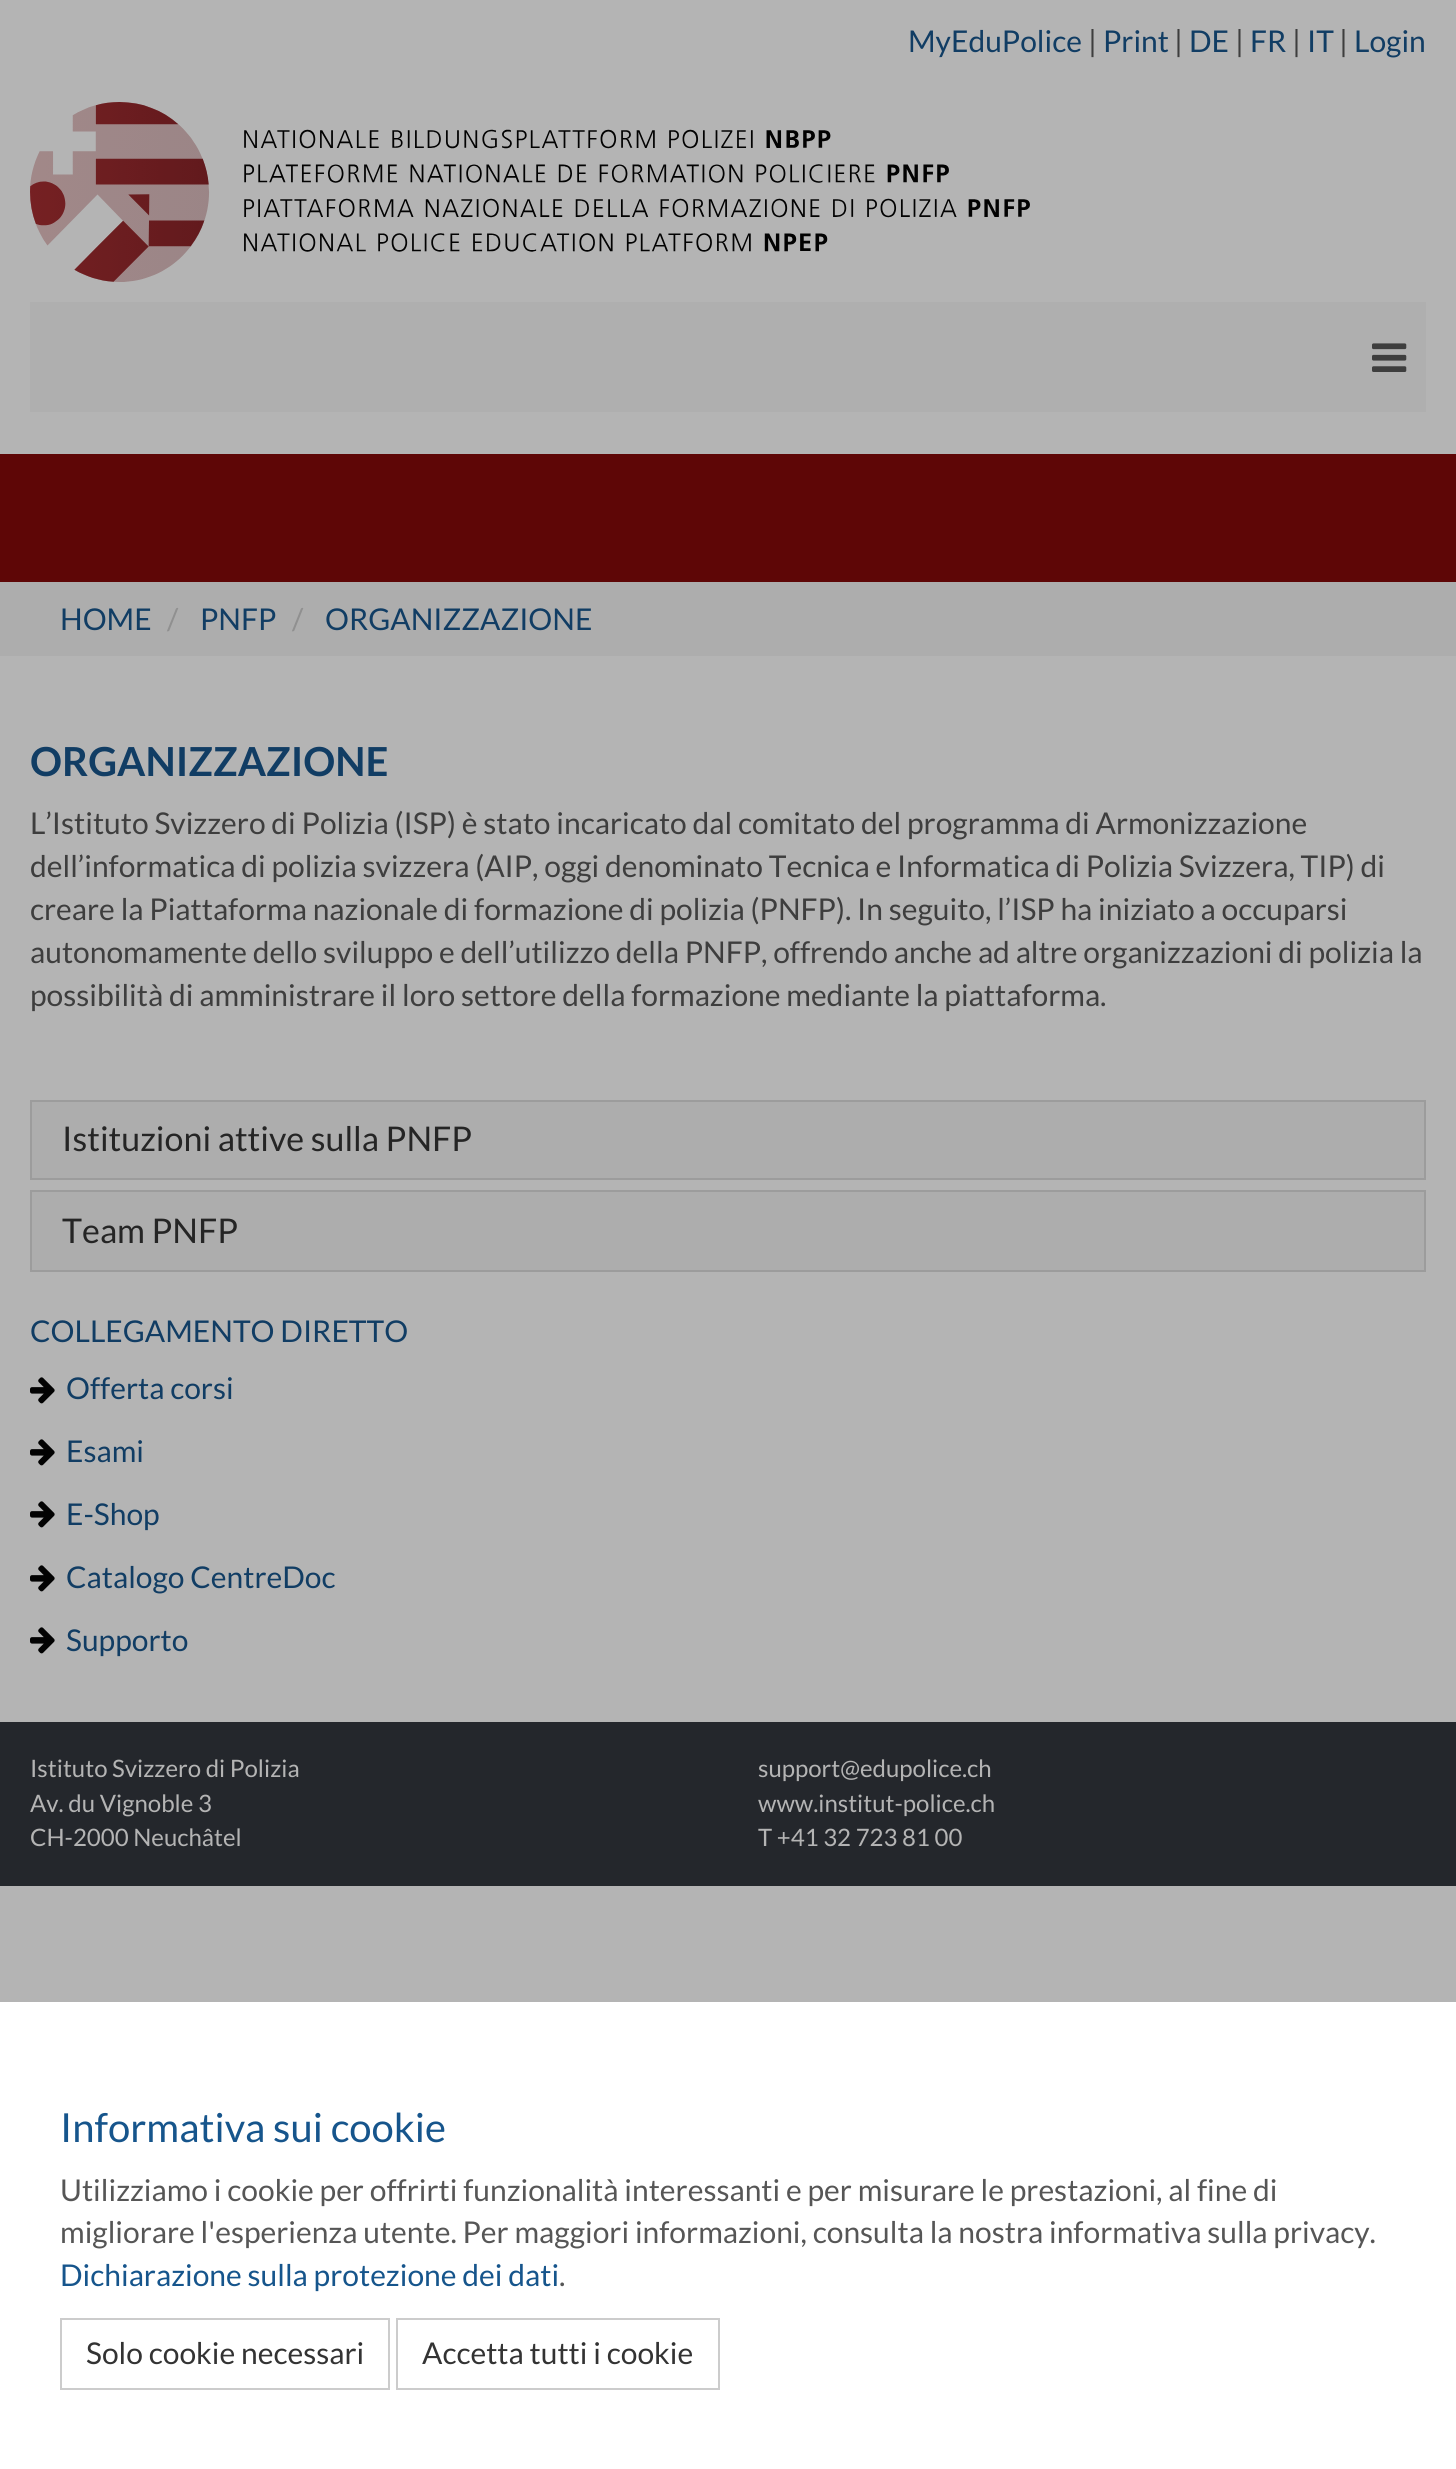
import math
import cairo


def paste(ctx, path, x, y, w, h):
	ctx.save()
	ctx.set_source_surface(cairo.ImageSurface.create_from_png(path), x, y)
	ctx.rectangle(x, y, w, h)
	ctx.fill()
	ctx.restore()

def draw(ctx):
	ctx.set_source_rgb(0.706, 0.706, 0.706)
	ctx.paint()
	ctx.select_font_face('Lato')
	ctx.set_font_size(30)
	ctx.set_source_rgb(0.067, 0.239, 0.392)
	ctx.move_to(908, 52)
	ctx.show_text('MyEduPolice')
	ctx.set_source_rgb(0.243, 0.243, 0.243)
	ctx.move_to(1088, 52)
	ctx.show_text('|')
	ctx.set_source_rgb(0.067, 0.239, 0.392)
	ctx.move_to(1103, 52)
	ctx.show_text('Print')
	ctx.set_source_rgb(0.243, 0.243, 0.243)
	ctx.move_to(1174, 52)
	ctx.show_text('|')
	ctx.set_source_rgb(0.067, 0.239, 0.392)
	ctx.move_to(1189, 52)
	ctx.show_text('DE')
	ctx.set_source_rgb(0.243, 0.243, 0.243)
	ctx.move_to(1235, 52)
	ctx.show_text('|')
	ctx.set_source_rgb(0.067, 0.239, 0.392)
	ctx.move_to(1250, 52)
	ctx.show_text('FR')
	ctx.set_source_rgb(0.243, 0.243, 0.243)
	ctx.move_to(1292, 52)
	ctx.show_text('|')
	ctx.set_source_rgb(0.067, 0.239, 0.392)
	ctx.move_to(1307, 52)
	ctx.show_text('IT')
	ctx.set_source_rgb(0.243, 0.243, 0.243)
	ctx.move_to(1339, 52)
	ctx.show_text('|')
	ctx.set_source_rgb(0.067, 0.239, 0.392)
	ctx.move_to(1354, 52)
	ctx.show_text('Login')
	paste(ctx, 'media/1.png', 30, 102, 1000, 180)
	ctx.set_source_rgb(0.686, 0.686, 0.686)
	ctx.rectangle(30, 302, 1396, 110)
	ctx.fill()
	paste(ctx, 'media/2.png', 1372, 343, 35, 29)
	ctx.set_source_rgb(0.369, 0.024, 0.024)
	ctx.rectangle(0, 454, 1456, 128)
	ctx.fill()
	ctx.set_source_rgb(0.678, 0.678, 0.678)
	ctx.rectangle(0, 582, 1456, 74)
	ctx.fill()
	ctx.set_source_rgb(0.067, 0.239, 0.392)
	ctx.move_to(60, 630)
	ctx.show_text('HOME')
	ctx.set_source_rgb(0.565, 0.565, 0.565)
	ctx.move_to(167, 630)
	ctx.show_text('/')
	ctx.set_source_rgb(0.067, 0.239, 0.392)
	ctx.move_to(200, 630)
	ctx.show_text('PNFP')
	ctx.set_source_rgb(0.565, 0.565, 0.565)
	ctx.move_to(292, 630)
	ctx.show_text('/')
	ctx.set_source_rgb(0.067, 0.239, 0.392)
	ctx.move_to(325, 630)
	ctx.show_text('ORGANIZZAZIONE')
	ctx.select_font_face('Lato', cairo.FONT_SLANT_NORMAL, cairo.FONT_WEIGHT_BOLD)
	ctx.set_font_size(40)
	ctx.move_to(30, 776)
	ctx.show_text('ORGANIZZAZIONE')
	ctx.select_font_face('Lato')
	ctx.set_font_size(30)
	ctx.set_source_rgb(0.243, 0.243, 0.243)
	for x, y, s in [
		(30, 834, 'L’Istituto Svizzero di Polizia (ISP) è stato incaricato dal comitato del programma di Armonizzazione'),
		(30, 877, 'dell’informatica di polizia svizzera (AIP, oggi denominato Tecnica e Informatica di Polizia Svizzera, TIP) di'),
		(30, 920, 'creare la Piattaforma nazionale di formazione di polizia (PNFP). In seguito, l’ISP ha iniziato a occuparsi'),
		(30, 963, 'autonomamente dello sviluppo e dell’utilizzo della PNFP, offrendo anche ad altre organizzazioni di polizia la'),
		(30, 1006, 'possibilità di amministrare il loro settore della formazione mediante la piattaforma.'),
	]:
		ctx.move_to(x, y)
		ctx.show_text(s)
	ctx.rectangle(31, 1101, 1394, 78)
	ctx.set_source_rgb(0.612, 0.612, 0.612)
	ctx.stroke()
	ctx.set_source_rgb(0.678, 0.678, 0.678)
	ctx.rectangle(32, 1102, 1392, 76)
	ctx.fill()
	ctx.set_font_size(34)
	ctx.set_source_rgb(0.145, 0.145, 0.145)
	ctx.move_to(62, 1151)
	ctx.show_text('Istituzioni attive sulla PNFP')
	ctx.rectangle(31, 1191, 1394, 80)
	ctx.set_source_rgb(0.612, 0.612, 0.612)
	ctx.stroke()
	ctx.set_source_rgb(0.678, 0.678, 0.678)
	ctx.rectangle(32, 1192, 1392, 78)
	ctx.fill()
	ctx.set_source_rgb(0.145, 0.145, 0.145)
	ctx.move_to(62, 1243)
	ctx.show_text('Team PNFP')
	ctx.set_font_size(30)
	ctx.set_source_rgb(0.067, 0.239, 0.392)
	ctx.move_to(30, 1342)
	ctx.show_text('COLLEGAMENTO DIRETTO')
	paste(ctx, 'media/3.png', 30, 1377, 25, 27)
	ctx.move_to(66, 1399)
	ctx.show_text('Offerta corsi')
	paste(ctx, 'media/3.png', 30, 1439, 25, 27)
	ctx.move_to(66, 1462)
	ctx.show_text('Esami')
	paste(ctx, 'media/3.png', 30, 1501, 25, 27)
	ctx.move_to(66, 1525)
	ctx.show_text('E-Shop')
	paste(ctx, 'media/3.png', 30, 1565, 25, 27)
	ctx.move_to(66, 1588)
	ctx.show_text('Catalogo CentreDoc')
	paste(ctx, 'media/3.png', 30, 1627, 25, 27)
	ctx.move_to(66, 1651)
	ctx.show_text('Supporto')
	ctx.set_source_rgb(0.141, 0.153, 0.173)
	ctx.rectangle(0, 1722, 1456, 164)
	ctx.fill()
	ctx.set_font_size(24)
	ctx.set_source_rgb(0.706, 0.706, 0.706)
	for x, y, s in [
		(30, 1777, 'Istituto Svizzero di Polizia'),
		(30, 1812, 'Av. du Vignoble 3'),
		(30, 1846, 'CH-2000 Neuchâtel'),
		(758, 1777, 'support@edupolice.ch'),
		(758, 1812, 'www.institut-police.ch'),
		(758, 1846, 'T +41 32 723 81 00'),
	]:
		ctx.move_to(x, y)
		ctx.show_text(s)
	ctx.set_source_rgb(1, 1, 1)
	ctx.rectangle(0, 2002, 1456, 467)
	ctx.fill()
	ctx.set_font_size(40)
	ctx.set_source_rgb(0.086, 0.333, 0.549)
	ctx.move_to(60, 2142)
	ctx.show_text('Informativa sui cookie')
	ctx.set_font_size(30)
	ctx.set_source_rgb(0.337, 0.337, 0.337)
	ctx.move_to(60, 2201)
	ctx.show_text('Utilizziamo i cookie per offrirti funzionalità interessanti e per misurare le prestazioni, al fine di')
	ctx.move_to(60, 2243)
	ctx.show_text('migliorare l\'esperienza utente. Per maggiori informazioni, consulta la nostra informativa sulla privacy.')
	ctx.set_source_rgb(0.086, 0.333, 0.549)
	ctx.move_to(60, 2286)
	ctx.show_text('Dichiarazione sulla protezione dei dati')
	ctx.set_source_rgb(0.337, 0.337, 0.337)
	ctx.move_to(559, 2286)
	ctx.show_text('.')
	ctx.rectangle(61, 2319, 328, 70)
	ctx.set_source_rgb(0.8, 0.8, 0.8)
	ctx.stroke()
	ctx.set_source_rgb(0.2, 0.2, 0.2)
	ctx.move_to(86, 2364)
	ctx.show_text('Solo cookie necessari')
	ctx.rectangle(397, 2319, 322, 70)
	ctx.set_source_rgb(0.8, 0.8, 0.8)
	ctx.stroke()
	ctx.set_source_rgb(0.2, 0.2, 0.2)
	ctx.move_to(422, 2364)
	ctx.show_text('Accetta tutti i cookie')


surface = cairo.ImageSurface(cairo.FORMAT_RGB24, 1456, 2469)
ctx = cairo.Context(surface)
options = cairo.FontOptions()
options.set_hint_metrics(cairo.HINT_METRICS_OFF)
options.set_hint_style(cairo.HINT_STYLE_NONE)
ctx.set_font_options(options)
ctx.set_miter_limit(4)
draw(ctx)
surface.write_to_png('image.png')
